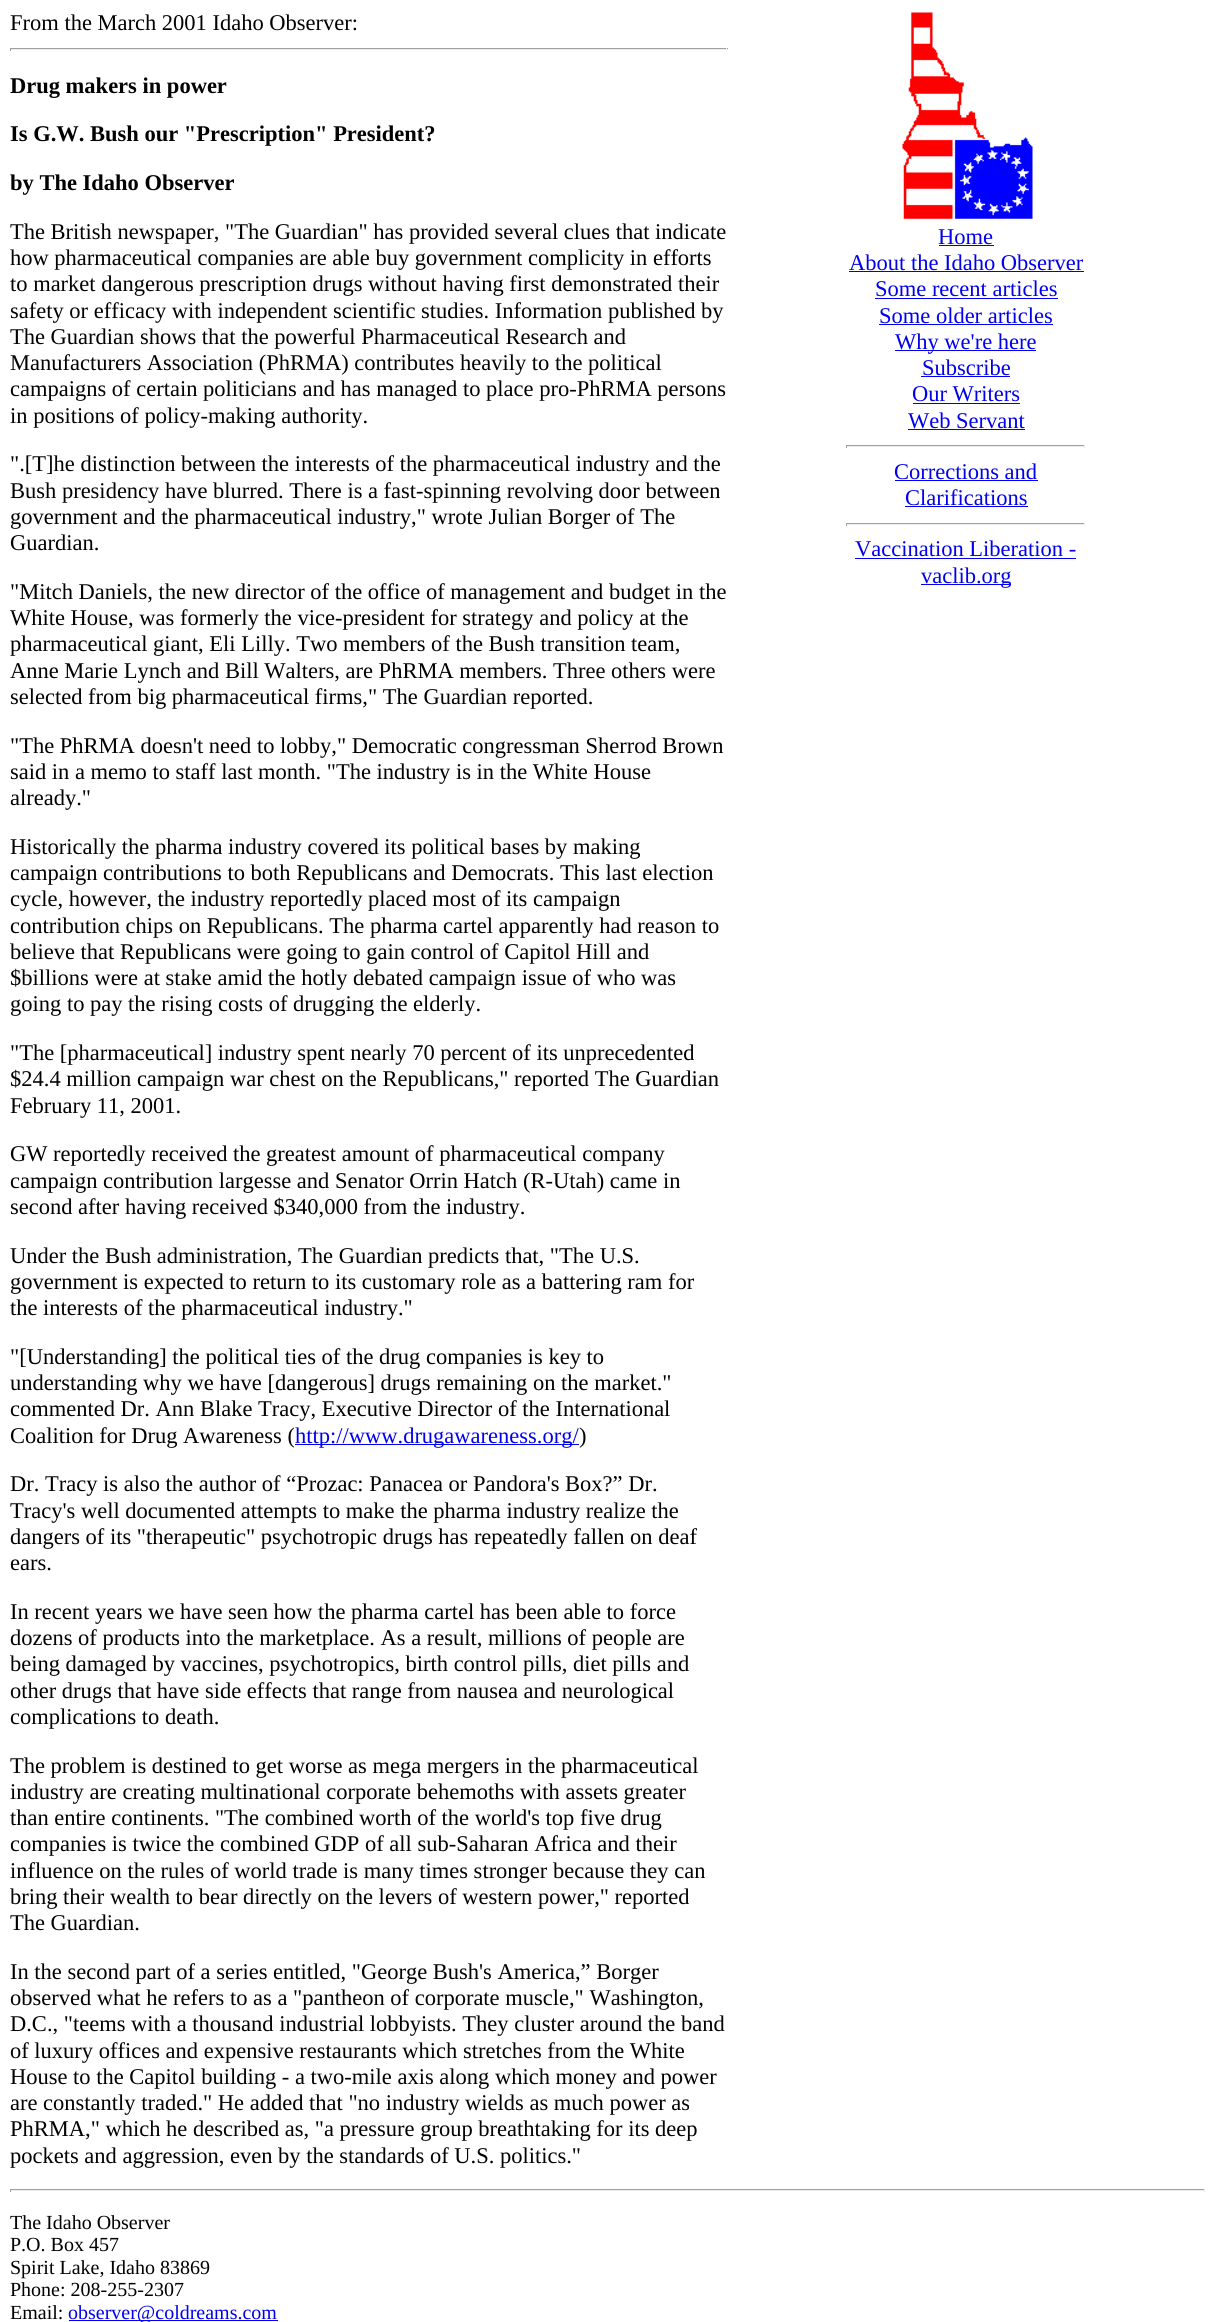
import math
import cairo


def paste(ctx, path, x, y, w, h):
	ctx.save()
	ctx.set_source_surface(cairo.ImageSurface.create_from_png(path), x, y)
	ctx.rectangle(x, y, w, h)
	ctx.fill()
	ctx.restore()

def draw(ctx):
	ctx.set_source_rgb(1, 1, 1)
	ctx.paint()
	ctx.select_font_face('Liberation Serif')
	ctx.set_font_size(22.5)
	ctx.set_source_rgb(0, 0, 0)
	ctx.move_to(10, 30)
	ctx.show_text('From the March 2001 Idaho Observer:')
	ctx.set_source_rgb(0.624, 0.624, 0.624)
	ctx.rectangle(10, 48, 718, 1)
	ctx.fill()
	ctx.set_source_rgb(0.933, 0.933, 0.933)
	ctx.rectangle(726, 48, 1, 3)
	ctx.rectangle(10, 49, 718, 1)
	ctx.fill()
	ctx.set_source_rgb(0.624, 0.624, 0.624)
	ctx.rectangle(10, 48, 1, 3)
	ctx.fill()
	ctx.select_font_face('Liberation Serif', cairo.FONT_SLANT_NORMAL, cairo.FONT_WEIGHT_BOLD)
	ctx.set_source_rgb(0, 0, 0)
	for x, y, s in [
		(10, 93, 'Drug makers in power'),
		(10, 141, 'Is G.W. Bush our "Prescription" President?'),
		(10, 190, 'by The Idaho Observer'),
	]:
		ctx.move_to(x, y)
		ctx.show_text(s)
	ctx.select_font_face('Liberation Serif')
	for x, y, s in [
		(10, 239, 'The British newspaper, "The Guardian" has provided several clues that indicate'),
		(10, 265, 'how pharmaceutical companies are able buy government complicity in efforts'),
		(10, 291, 'to market dangerous prescription drugs without having first demonstrated their'),
		(10, 318, 'safety or efficacy with independent scientific studies. Information published by'),
		(10, 344, 'The Guardian shows that the powerful Pharmaceutical Research and'),
		(10, 370, 'Manufacturers Association (PhRMA) contributes heavily to the political'),
		(10, 396, 'campaigns of certain politicians and has managed to place pro-PhRMA persons'),
		(10, 423, 'in positions of policy-making authority.'),
		(10, 471, '".[T]he distinction between the interests of the pharmaceutical industry and the'),
		(10, 498, 'Bush presidency have blurred. There is a fast-spinning revolving door between'),
		(10, 524, 'government and the pharmaceutical industry," wrote Julian Borger of The'),
		(10, 550, 'Guardian.'),
		(10, 599, '"Mitch Daniels, the new director of the office of management and budget in the'),
		(10, 625, 'White House, was formerly the vice-president for strategy and policy at the'),
		(10, 651, 'pharmaceutical giant, Eli Lilly. Two members of the Bush transition team,'),
		(10, 678, 'Anne Marie Lynch and Bill Walters, are PhRMA members. Three others were'),
		(10, 704, 'selected from big pharmaceutical firms," The Guardian reported.'),
		(10, 753, '"The PhRMA doesn\'t need to lobby," Democratic congressman Sherrod Brown'),
		(10, 779, 'said in a memo to staff last month. "The industry is in the White House'),
		(10, 805, 'already."'),
		(10, 854, 'Historically the pharma industry covered its political bases by making'),
		(10, 880, 'campaign contributions to both Republicans and Democrats. This last election'),
		(10, 906, 'cycle, however, the industry reportedly placed most of its campaign'),
		(10, 933, 'contribution chips on Republicans. The pharma cartel apparently had reason to'),
		(10, 959, 'believe that Republicans were going to gain control of Capitol Hill and'),
		(10, 985, '$billions were at stake amid the hotly debated campaign issue of who was'),
		(10, 1011, 'going to pay the rising costs of drugging the elderly.'),
		(10, 1060, '"The [pharmaceutical] industry spent nearly 70 percent of its unprecedented'),
		(10, 1086, '$24.4 million campaign war chest on the Republicans," reported The Guardian'),
		(10, 1113, 'February 11, 2001.'),
		(10, 1161, 'GW reportedly received the greatest amount of pharmaceutical company'),
		(10, 1188, 'campaign contribution largesse and Senator Orrin Hatch (R-Utah) came in'),
		(10, 1214, 'second after having received $340,000 from the industry.'),
		(10, 1263, 'Under the Bush administration, The Guardian predicts that, "The U.S.'),
		(10, 1289, 'government is expected to return to its customary role as a battering ram for'),
		(10, 1315, 'the interests of the pharmaceutical industry."'),
		(10, 1364, '"[Understanding] the political ties of the drug companies is key to'),
		(10, 1390, 'understanding why we have [dangerous] drugs remaining on the market."'),
		(10, 1416, 'commented Dr. Ann Blake Tracy, Executive Director of the International'),
		(10, 1443, 'Coalition for Drug Awareness ('),
	]:
		ctx.move_to(x, y)
		ctx.show_text(s)
	ctx.set_source_rgb(0, 0, 0.933)
	ctx.rectangle(295, 1444, 284, 1)
	ctx.fill()
	ctx.move_to(295, 1443)
	ctx.show_text('http://www.drugawareness.org/')
	ctx.set_source_rgb(0, 0, 0)
	for x, y, s in [
		(579, 1443, ')'),
		(10, 1491, 'Dr. Tracy is also the author of “Prozac: Panacea or Pandora\'s Box?” Dr.'),
		(10, 1518, 'Tracy\'s well documented attempts to make the pharma industry realize the'),
		(10, 1544, 'dangers of its "therapeutic" psychotropic drugs has repeatedly fallen on deaf'),
		(10, 1570, 'ears.'),
		(10, 1619, 'In recent years we have seen how the pharma cartel has been able to force'),
		(10, 1645, 'dozens of products into the marketplace. As a result, millions of people are'),
		(10, 1671, 'being damaged by vaccines, psychotropics, birth control pills, diet pills and'),
		(10, 1698, 'other drugs that have side effects that range from nausea and neurological'),
		(10, 1724, 'complications to death.'),
		(10, 1773, 'The problem is destined to get worse as mega mergers in the pharmaceutical'),
		(10, 1799, 'industry are creating multinational corporate behemoths with assets greater'),
		(10, 1825, 'than entire continents. "The combined worth of the world\'s top five drug'),
		(10, 1851, 'companies is twice the combined GDP of all sub-Saharan Africa and their'),
		(10, 1878, 'influence on the rules of world trade is many times stronger because they can'),
		(10, 1904, 'bring their wealth to bear directly on the levers of western power," reported'),
		(10, 1930, 'The Guardian.'),
		(10, 1979, 'In the second part of a series entitled, "George Bush\'s America,” Borger'),
		(10, 2005, 'observed what he refers to as a "pantheon of corporate muscle," Washington,'),
		(10, 2031, 'D.C., "teems with a thousand industrial lobbyists. They cluster around the band'),
		(10, 2058, 'of luxury offices and expensive restaurants which stretches from the White'),
		(10, 2084, 'House to the Capitol building - a two-mile axis along which money and power'),
		(10, 2110, 'are constantly traded." He added that "no industry wields as much power as'),
		(10, 2136, 'PhRMA," which he described as, "a pressure group breathtaking for its deep'),
		(10, 2163, 'pockets and aggression, even by the standards of U.S. politics."'),
	]:
		ctx.move_to(x, y)
		ctx.show_text(s)
	paste(ctx, 'media/1.png', 902, 12, 131, 207)
	ctx.set_source_rgb(0, 0, 0.933)
	ctx.move_to(938, 244)
	ctx.show_text('Home')
	ctx.rectangle(939, 245, 55, 1)
	ctx.fill()
	ctx.move_to(849, 270)
	ctx.show_text('About the Idaho Observer')
	ctx.rectangle(849, 271, 235, 1)
	ctx.fill()
	ctx.move_to(875, 296)
	ctx.show_text('Some recent articles')
	ctx.rectangle(875, 298, 183, 1)
	ctx.fill()
	ctx.move_to(879, 323)
	ctx.show_text('Some older articles')
	ctx.rectangle(879, 324, 174, 1)
	ctx.fill()
	ctx.rectangle(895, 350, 141, 1)
	ctx.fill()
	ctx.move_to(895, 349)
	ctx.show_text('Why we\'re here')
	ctx.move_to(922, 375)
	ctx.show_text('Subscribe')
	ctx.rectangle(921, 376, 89, 1)
	ctx.fill()
	ctx.move_to(912, 401)
	ctx.show_text('Our Writers')
	ctx.rectangle(913, 403, 107, 1)
	ctx.fill()
	ctx.move_to(908, 428)
	ctx.show_text('Web Servant')
	ctx.rectangle(908, 429, 117, 1)
	ctx.fill()
	ctx.set_source_rgb(0.624, 0.624, 0.624)
	ctx.rectangle(846, 445, 239, 1)
	ctx.fill()
	ctx.set_source_rgb(0.933, 0.933, 0.933)
	ctx.rectangle(1084, 445, 1, 3)
	ctx.rectangle(846, 446, 239, 1)
	ctx.fill()
	ctx.set_source_rgb(0.624, 0.624, 0.624)
	ctx.rectangle(846, 445, 1, 3)
	ctx.fill()
	ctx.set_source_rgb(0, 0, 0.933)
	ctx.move_to(894, 479)
	ctx.show_text('Corrections and')
	ctx.rectangle(895, 480, 143, 1)
	ctx.fill()
	ctx.move_to(905, 505)
	ctx.show_text('Clarifications')
	ctx.rectangle(905, 506, 123, 1)
	ctx.fill()
	ctx.set_source_rgb(0.624, 0.624, 0.624)
	ctx.rectangle(846, 523, 239, 1)
	ctx.fill()
	ctx.set_source_rgb(0.933, 0.933, 0.933)
	ctx.rectangle(1084, 523, 1, 3)
	ctx.rectangle(846, 524, 239, 1)
	ctx.fill()
	ctx.set_source_rgb(0.624, 0.624, 0.624)
	ctx.rectangle(846, 523, 1, 3)
	ctx.fill()
	ctx.set_source_rgb(0, 0, 0.933)
	ctx.move_to(855, 556)
	ctx.show_text('Vaccination Liberation -')
	ctx.rectangle(855, 558, 221, 1)
	ctx.fill()
	ctx.rectangle(921, 584, 90, 1)
	ctx.fill()
	ctx.move_to(921, 583)
	ctx.show_text('vaclib.org')
	ctx.set_source_rgb(0.624, 0.624, 0.624)
	ctx.rectangle(10, 2189, 1195, 1)
	ctx.fill()
	ctx.set_source_rgb(0.933, 0.933, 0.933)
	ctx.rectangle(1204, 2189, 1, 3)
	ctx.rectangle(10, 2190, 1195, 1)
	ctx.fill()
	ctx.set_source_rgb(0.624, 0.624, 0.624)
	ctx.rectangle(10, 2189, 1, 3)
	ctx.fill()
	ctx.set_font_size(20)
	ctx.set_source_rgb(0, 0, 0)
	for x, y, s in [
		(10, 2229, 'The Idaho Observer'),
		(10, 2251, 'P.O. Box 457'),
		(10, 2274, 'Spirit Lake, Idaho 83869'),
		(10, 2296, 'Phone: 208-255-2307'),
		(10, 2319, 'Email:'),
	]:
		ctx.move_to(x, y)
		ctx.show_text(s)
	ctx.set_source_rgb(0, 0, 0.933)
	ctx.rectangle(69, 2320, 209, 1)
	ctx.fill()
	ctx.move_to(68, 2319)
	ctx.show_text('observer@coldreams.com')


surface = cairo.ImageSurface(cairo.FORMAT_RGB24, 1214, 2322)
ctx = cairo.Context(surface)
options = cairo.FontOptions()
options.set_hint_metrics(cairo.HINT_METRICS_OFF)
options.set_hint_style(cairo.HINT_STYLE_NONE)
ctx.set_font_options(options)
ctx.set_miter_limit(4)
draw(ctx)
surface.write_to_png('image.png')
